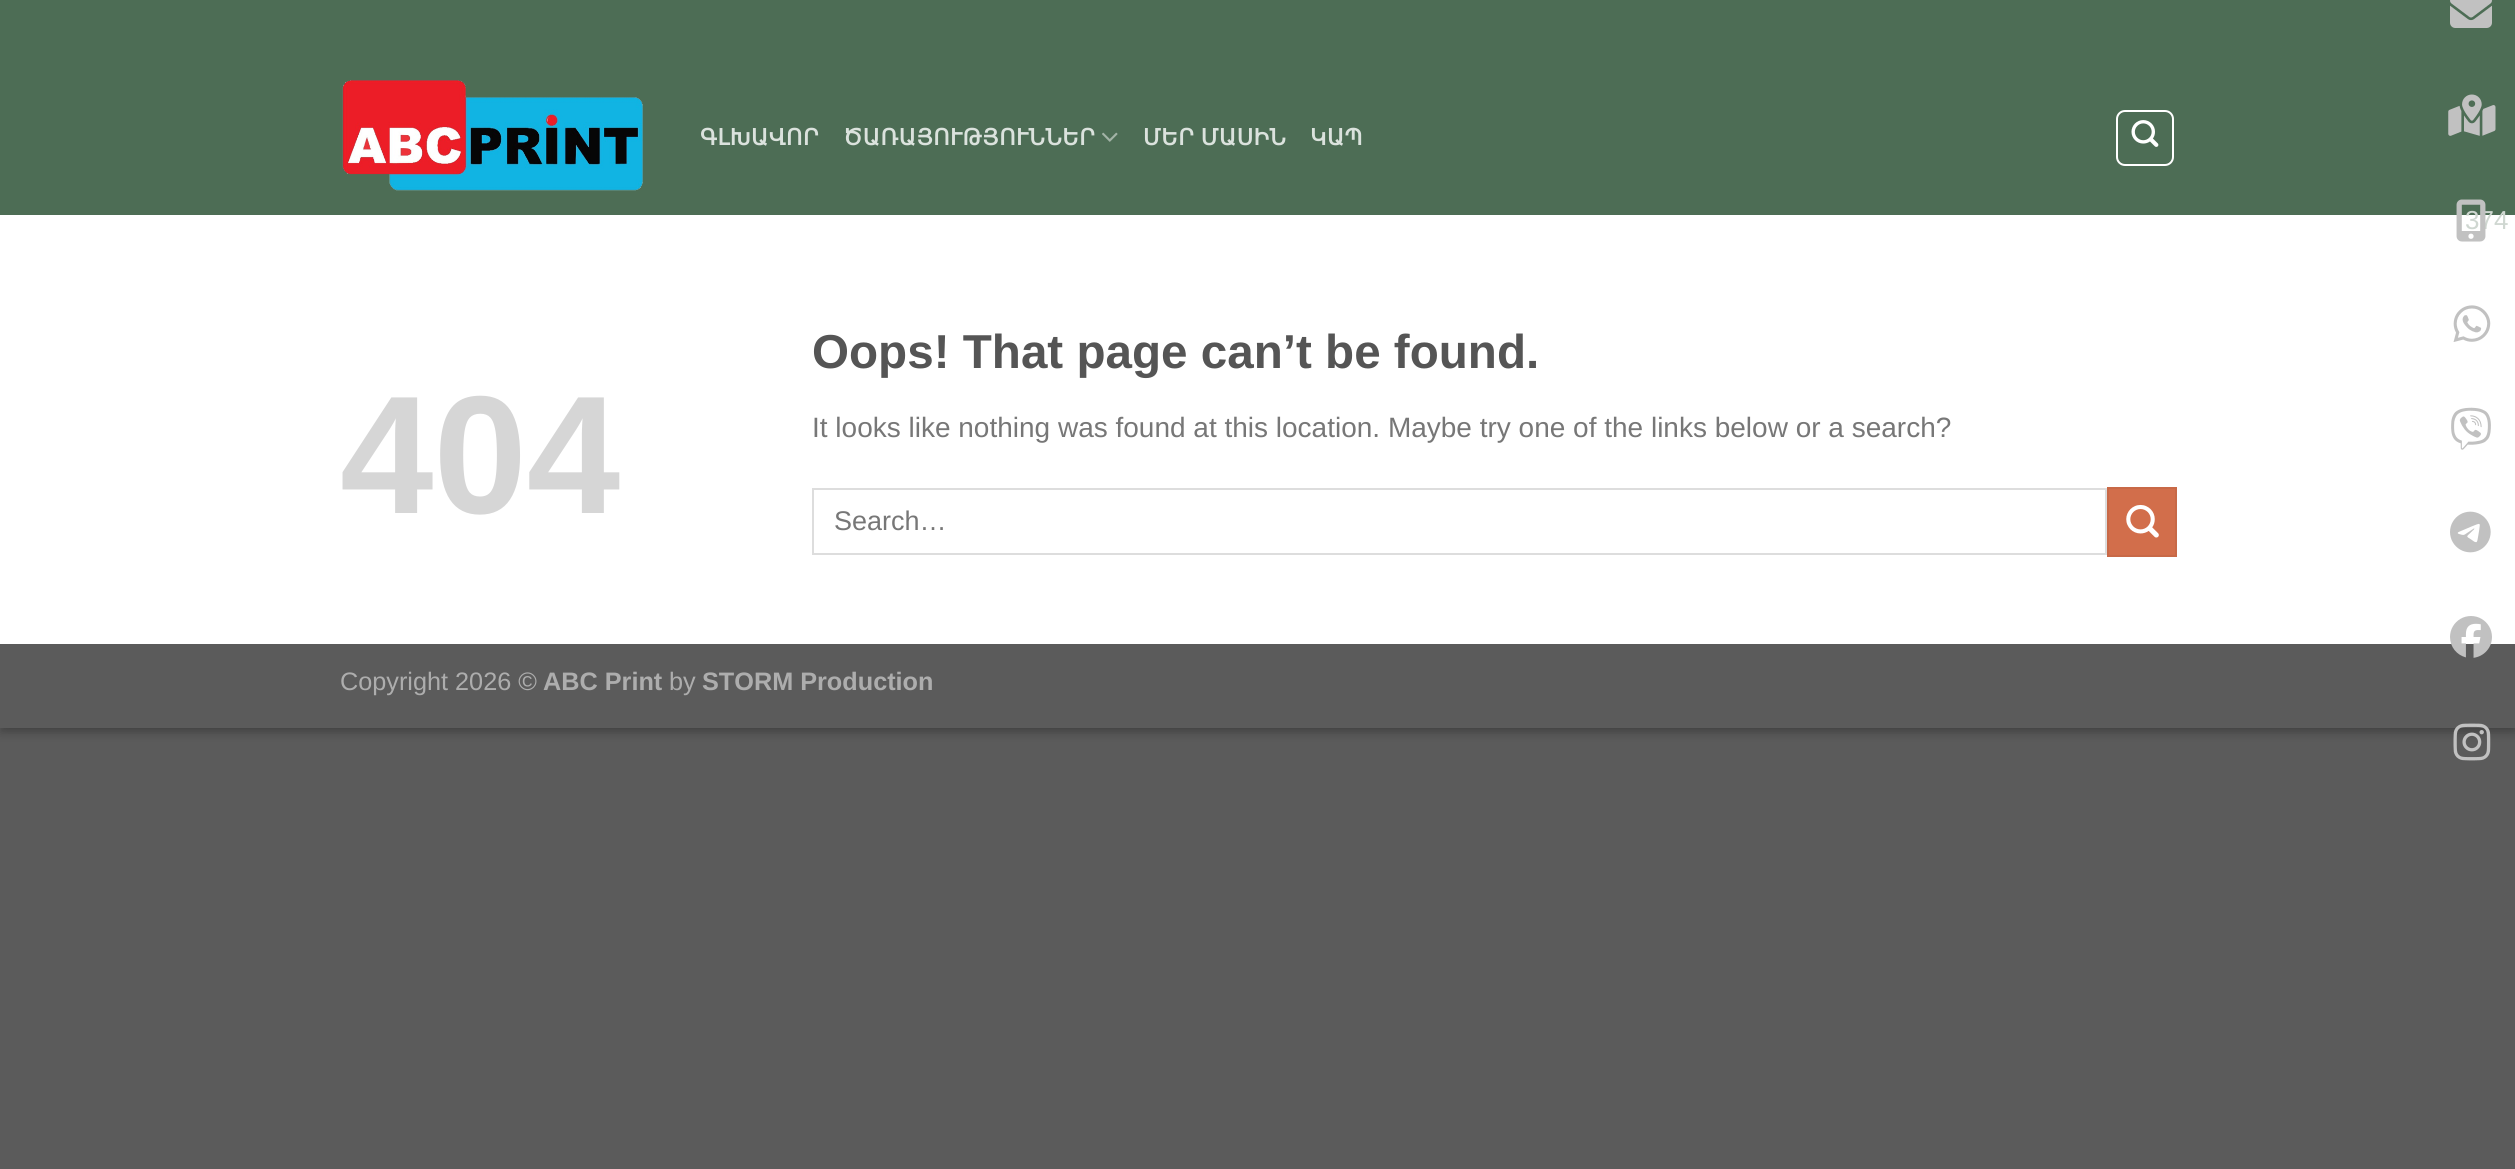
import math
import cairo


def write_spaced(ctx, x, y, s, letter, word):
	ctx.move_to(x, y)
	for ch in s:
		ctx.show_text(ch)
		ctx.rel_move_to(letter + word * (ch == ' '), 0)

def round_path(ctx, x, y, w, h, r):
	ctx.new_sub_path()
	for i, (u, v) in enumerate([(x + w - r, y + h - r), (x + r, y + h - r), (x + r, y + r), (x + w - r, y + r)]):
		ctx.arc(u, v, r, i * math.pi / 2, (i + 1) * math.pi / 2)
	ctx.close_path()

def blur_box(ctx, x, y, w, h, r, blur, alpha):
	ctx.push_group_with_content(cairo.CONTENT_ALPHA)
	ctx.set_operator(cairo.OPERATOR_SOURCE)
	for i in range(15, -16, -2):
		e = blur * i / 6
		if min(w, h) + 2 * e > 0:
			ctx.set_source_rgba(0, 0, 0, alpha * math.erfc((i - 1) / 8.5) / 2)
			round_path(ctx, x - e, y - e, w + 2 * e, h + 2 * e, max(0, min(r + e + blur * .6, min(w, h) / 2 + e)))
			ctx.fill()
	ctx.mask(ctx.pop_group())

def paste(ctx, path, x, y, w, h):
	ctx.save()
	ctx.set_source_surface(cairo.ImageSurface.create_from_png(path), x, y)
	ctx.rectangle(x, y, w, h)
	ctx.fill()
	ctx.restore()

def draw(ctx):
	ctx.set_source_rgb(0.357, 0.357, 0.357)
	ctx.paint()
	ctx.set_source_rgb(0, 0, 0)
	blur_box(ctx, 0, 5, 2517, 728, 0, 5, 0.23)
	blur_box(ctx, 7, 12, 2503, 714, 0, 5, 0.16)
	ctx.set_source_rgb(1, 1, 1)
	ctx.rectangle(0, 215, 2515, 429)
	ctx.fill()
	ctx.set_source_rgb(0.302, 0.427, 0.333)
	ctx.rectangle(0, 0, 2515, 215)
	ctx.fill()
	paste(ctx, 'media/1.png', 342, 80, 301, 111)
	ctx.select_font_face('DejaVu Sans', cairo.FONT_SLANT_NORMAL, cairo.FONT_WEIGHT_BOLD)
	ctx.set_font_size(22.4)
	ctx.set_source_rgb(0.859, 0.886, 0.867)
	write_spaced(ctx, 700, 145, 'ԳԼԽԱՎՈՐ', 0.5, 0)
	write_spaced(ctx, 843, 145, 'ԾԱՌԱՅՈՒԹՅՈՒՆՆԵՐ', 0.5, 0)
	paste(ctx, 'media/2.png', 1102, 132, 16, 10)
	write_spaced(ctx, 1143, 145, 'ՄԵՐ ՄԱՍԻՆ', 0.5, -1)
	write_spaced(ctx, 1310, 145, 'ԿԱՊ', 0.5, 0)
	round_path(ctx, 2117, 111, 56, 54, 8)
	ctx.set_source_rgb(1, 1, 1)
	ctx.stroke()
	paste(ctx, 'media/3.png', 2131, 120, 28, 27)
	ctx.select_font_face('Liberation Sans', cairo.FONT_SLANT_NORMAL, cairo.FONT_WEIGHT_BOLD)
	ctx.set_font_size(168)
	ctx.set_source_rgb(0.839, 0.839, 0.839)
	ctx.move_to(340, 513)
	ctx.show_text('404')
	ctx.set_font_size(47.6)
	ctx.set_source_rgb(0.333, 0.333, 0.333)
	ctx.move_to(812, 368)
	ctx.show_text('Oops! That page can’t be found.')
	ctx.select_font_face('Liberation Sans')
	ctx.set_font_size(28)
	ctx.set_source_rgb(0.467, 0.467, 0.467)
	ctx.move_to(812, 437)
	ctx.show_text('It looks like nothing was found at this location. Maybe try one of the links below or a search?')
	ctx.rectangle(813, 489, 1293, 65)
	ctx.set_source_rgb(0.867, 0.867, 0.867)
	ctx.stroke()
	ctx.set_font_size(27)
	ctx.set_source_rgb(0.467, 0.467, 0.467)
	ctx.move_to(834, 530)
	ctx.show_text('Search…')
	ctx.set_source_rgb(0.824, 0.431, 0.294)
	ctx.rectangle(2108, 488, 68, 68)
	ctx.fill_preserve()
	ctx.set_source_rgb(0.784, 0.412, 0.278)
	ctx.stroke()
	paste(ctx, 'media/4.png', 2126, 504, 33, 34)
	ctx.set_source_rgb(0.357, 0.357, 0.357)
	ctx.rectangle(0, 644, 2515, 84)
	ctx.fill()
	ctx.set_font_size(25.25)
	ctx.set_source_rgb(0.678, 0.678, 0.678)
	ctx.move_to(340, 690)
	ctx.show_text('Copyright 2026 ©')
	ctx.select_font_face('Liberation Sans', cairo.FONT_SLANT_NORMAL, cairo.FONT_WEIGHT_BOLD)
	ctx.move_to(543, 690)
	ctx.show_text('ABC Print')
	ctx.select_font_face('Liberation Sans')
	ctx.move_to(669, 690)
	ctx.show_text('by')
	ctx.select_font_face('Liberation Sans', cairo.FONT_SLANT_NORMAL, cairo.FONT_WEIGHT_BOLD)
	ctx.move_to(702, 690)
	ctx.show_text('STORM Production')
	paste(ctx, 'media/5.png', 2450, 0, 42, 28)
	paste(ctx, 'media/6.png', 2448, 94, 48, 42)
	ctx.select_font_face('Liberation Sans')
	ctx.set_font_size(26)
	ctx.set_source_rgb(0.812, 0.843, 0.82)
	ctx.move_to(2465, 229)
	ctx.show_text('374')
	paste(ctx, 'media/7.png', 2456, 199, 30, 43)
	paste(ctx, 'media/8.png', 2453, 305, 38, 37)
	paste(ctx, 'media/9.png', 2451, 407, 40, 43)
	paste(ctx, 'media/10.png', 2450, 511, 41, 42)
	paste(ctx, 'media/11.png', 2450, 616, 42, 42)
	paste(ctx, 'media/12.png', 2453, 723, 38, 38)


surface = cairo.ImageSurface(cairo.FORMAT_RGB24, 2515, 1169)
ctx = cairo.Context(surface)
options = cairo.FontOptions()
options.set_hint_metrics(cairo.HINT_METRICS_OFF)
options.set_hint_style(cairo.HINT_STYLE_NONE)
ctx.set_font_options(options)
ctx.set_miter_limit(4)
draw(ctx)
surface.write_to_png('image.png')
